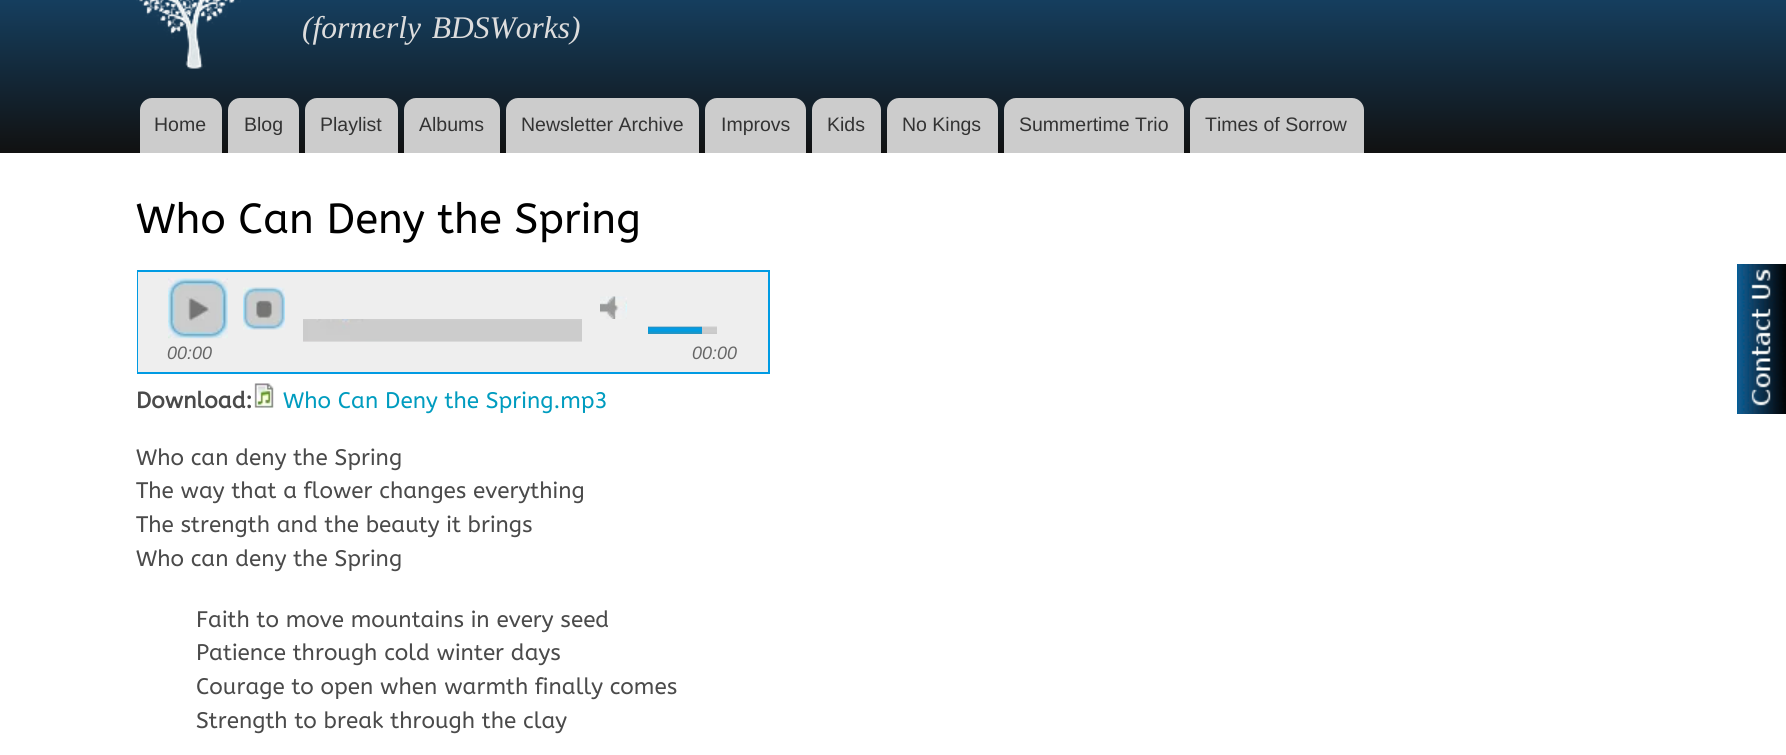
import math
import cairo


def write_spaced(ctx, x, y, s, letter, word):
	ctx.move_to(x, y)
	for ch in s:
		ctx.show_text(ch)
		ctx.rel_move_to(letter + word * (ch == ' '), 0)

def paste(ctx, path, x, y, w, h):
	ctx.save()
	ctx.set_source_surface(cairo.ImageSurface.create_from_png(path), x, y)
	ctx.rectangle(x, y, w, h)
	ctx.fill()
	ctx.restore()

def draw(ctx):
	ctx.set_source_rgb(1, 1, 1)
	ctx.paint()
	gradient = cairo.LinearGradient(893, -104, 893, 153)
	gradient.add_color_stop_rgba(0, 0.094, 0.365, 0.576, 1)
	gradient.add_color_stop_rgba(1, 0.067, 0.067, 0.067, 1)
	ctx.set_source(gradient)
	ctx.rectangle(0, 0, 1786, 153)
	ctx.fill()
	paste(ctx, 'media/1.png', 136, 0, 105, 69)
	ctx.select_font_face('Liberation Serif', cairo.FONT_SLANT_ITALIC)
	ctx.set_font_size(31.5)
	ctx.set_source_rgb(0.867, 0.867, 0.867)
	write_spaced(ctx, 302, 38, '(formerly BDSWorks)', 0, 3)
	ctx.set_source_rgb(0.8, 0.8, 0.8)
	ctx.new_path()
	ctx.move_to(152, 98)
	ctx.line_to(210, 98)
	ctx.curve_to(216.5, 98, 222, 103.5, 222, 110)
	ctx.line_to(222, 153)
	ctx.line_to(140, 153)
	ctx.line_to(140, 110)
	ctx.curve_to(140, 103.5, 145.5, 98, 152, 98)
	ctx.close_path()
	ctx.fill()
	ctx.select_font_face('Liberation Sans')
	ctx.set_font_size(19.5)
	ctx.set_source_rgb(0.2, 0.2, 0.2)
	ctx.move_to(154, 131)
	ctx.show_text('Home')
	ctx.set_source_rgb(0.8, 0.8, 0.8)
	ctx.new_path()
	ctx.move_to(240, 98)
	ctx.line_to(287, 98)
	ctx.curve_to(293.5, 98, 299, 103.5, 299, 110)
	ctx.line_to(299, 153)
	ctx.line_to(228, 153)
	ctx.line_to(228, 110)
	ctx.curve_to(228, 103.5, 233.5, 98, 240, 98)
	ctx.close_path()
	ctx.fill()
	ctx.set_source_rgb(0.2, 0.2, 0.2)
	ctx.move_to(244, 131)
	ctx.show_text('Blog')
	ctx.set_source_rgb(0.8, 0.8, 0.8)
	ctx.new_path()
	ctx.move_to(317, 98)
	ctx.line_to(386, 98)
	ctx.curve_to(392.5, 98, 398, 103.5, 398, 110)
	ctx.line_to(398, 153)
	ctx.line_to(305, 153)
	ctx.line_to(305, 110)
	ctx.curve_to(305, 103.5, 310.5, 98, 317, 98)
	ctx.close_path()
	ctx.fill()
	ctx.set_source_rgb(0.2, 0.2, 0.2)
	ctx.move_to(320, 131)
	ctx.show_text('Playlist')
	ctx.set_source_rgb(0.8, 0.8, 0.8)
	ctx.new_path()
	ctx.move_to(416, 98)
	ctx.line_to(488, 98)
	ctx.curve_to(494.5, 98, 500, 103.5, 500, 110)
	ctx.line_to(500, 153)
	ctx.line_to(404, 153)
	ctx.line_to(404, 110)
	ctx.curve_to(404, 103.5, 409.5, 98, 416, 98)
	ctx.close_path()
	ctx.fill()
	ctx.set_source_rgb(0.2, 0.2, 0.2)
	ctx.move_to(419, 131)
	ctx.show_text('Albums')
	ctx.set_source_rgb(0.8, 0.8, 0.8)
	ctx.new_path()
	ctx.move_to(518, 98)
	ctx.line_to(687, 98)
	ctx.curve_to(693.5, 98, 699, 103.5, 699, 110)
	ctx.line_to(699, 153)
	ctx.line_to(506, 153)
	ctx.line_to(506, 110)
	ctx.curve_to(506, 103.5, 511.5, 98, 518, 98)
	ctx.close_path()
	ctx.fill()
	ctx.set_source_rgb(0.2, 0.2, 0.2)
	ctx.move_to(521, 131)
	ctx.show_text('Newsletter Archive')
	ctx.set_source_rgb(0.8, 0.8, 0.8)
	ctx.new_path()
	ctx.move_to(717, 98)
	ctx.line_to(794, 98)
	ctx.curve_to(800.5, 98, 806, 103.5, 806, 110)
	ctx.line_to(806, 153)
	ctx.line_to(705, 153)
	ctx.line_to(705, 110)
	ctx.curve_to(705, 103.5, 710.5, 98, 717, 98)
	ctx.close_path()
	ctx.fill()
	ctx.set_source_rgb(0.2, 0.2, 0.2)
	ctx.move_to(721, 131)
	ctx.show_text('Improvs')
	ctx.set_source_rgb(0.8, 0.8, 0.8)
	ctx.new_path()
	ctx.move_to(824, 98)
	ctx.line_to(869, 98)
	ctx.curve_to(875.5, 98, 881, 103.5, 881, 110)
	ctx.line_to(881, 153)
	ctx.line_to(812, 153)
	ctx.line_to(812, 110)
	ctx.curve_to(812, 103.5, 817.5, 98, 824, 98)
	ctx.close_path()
	ctx.fill()
	ctx.set_source_rgb(0.2, 0.2, 0.2)
	ctx.move_to(827, 131)
	ctx.show_text('Kids')
	ctx.set_source_rgb(0.8, 0.8, 0.8)
	ctx.new_path()
	ctx.move_to(899, 98)
	ctx.line_to(986, 98)
	ctx.curve_to(992.5, 98, 998, 103.5, 998, 110)
	ctx.line_to(998, 153)
	ctx.line_to(887, 153)
	ctx.line_to(887, 110)
	ctx.curve_to(887, 103.5, 892.5, 98, 899, 98)
	ctx.close_path()
	ctx.fill()
	ctx.set_source_rgb(0.2, 0.2, 0.2)
	ctx.move_to(902, 131)
	ctx.show_text('No Kings')
	ctx.set_source_rgb(0.8, 0.8, 0.8)
	ctx.new_path()
	ctx.move_to(1016, 98)
	ctx.line_to(1172, 98)
	ctx.curve_to(1178.5, 98, 1184, 103.5, 1184, 110)
	ctx.line_to(1184, 153)
	ctx.line_to(1004, 153)
	ctx.line_to(1004, 110)
	ctx.curve_to(1004, 103.5, 1009.5, 98, 1016, 98)
	ctx.close_path()
	ctx.fill()
	ctx.set_source_rgb(0.2, 0.2, 0.2)
	ctx.move_to(1019, 131)
	ctx.show_text('Summertime Trio')
	ctx.set_source_rgb(0.8, 0.8, 0.8)
	ctx.new_path()
	ctx.move_to(1202, 98)
	ctx.line_to(1352, 98)
	ctx.curve_to(1358.5, 98, 1364, 103.5, 1364, 110)
	ctx.line_to(1364, 153)
	ctx.line_to(1190, 153)
	ctx.line_to(1190, 110)
	ctx.curve_to(1190, 103.5, 1195.5, 98, 1202, 98)
	ctx.close_path()
	ctx.fill()
	ctx.set_source_rgb(0.2, 0.2, 0.2)
	ctx.move_to(1205, 131)
	ctx.show_text('Times of Sorrow')
	ctx.select_font_face('ABeeZee')
	ctx.set_font_size(42)
	ctx.set_source_rgb(0, 0, 0)
	ctx.move_to(136, 233)
	ctx.show_text('Who Can Deny the Spring')
	ctx.rectangle(138, 271, 631, 102)
	ctx.set_source_rgb(0, 0.608, 0.89)
	ctx.stroke()
	ctx.set_source_rgb(0.933, 0.933, 0.933)
	ctx.rectangle(138, 272, 630, 100)
	ctx.fill()
	paste(ctx, 'media/2.png', 168, 278, 60, 61)
	paste(ctx, 'media/3.png', 243, 287, 42, 43)
	paste(ctx, 'media/4.png', 600, 296, 27, 23)
	ctx.set_source_rgb(0.867, 0.867, 0.867)
	ctx.rectangle(303, 341, 279, 1)
	ctx.fill()
	paste(ctx, 'media/5.png', 303, 319, 279, 23)
	paste(ctx, 'media/6.png', 648, 326, 69, 8)
	paste(ctx, 'media/7.png', 648, 326, 54, 8)
	ctx.select_font_face('Liberation Sans', cairo.FONT_SLANT_ITALIC)
	ctx.set_font_size(18)
	ctx.set_source_rgb(0.4, 0.4, 0.4)
	ctx.move_to(167, 359)
	ctx.show_text('00:00')
	ctx.move_to(692, 359)
	ctx.show_text('00:00')
	ctx.select_font_face('ABeeZee', cairo.FONT_SLANT_NORMAL, cairo.FONT_WEIGHT_BOLD)
	ctx.set_font_size(22.5)
	ctx.set_source_rgb(0.29, 0.29, 0.29)
	ctx.move_to(136, 408)
	ctx.show_text('Download:')
	paste(ctx, 'media/8.png', 254, 383, 20, 25)
	ctx.select_font_face('ABeeZee')
	ctx.set_source_rgb(0, 0.612, 0.749)
	ctx.move_to(283, 408)
	ctx.show_text('Who Can Deny the Spring.mp3')
	ctx.set_source_rgb(0.29, 0.29, 0.29)
	for x, y, s in [
		(136, 465, 'Who can deny the Spring'),
		(136, 498, 'The way that a flower changes everything'),
		(136, 532, 'The strength and the beauty it brings'),
		(136, 566, 'Who can deny the Spring'),
		(196, 627, 'Faith to move mountains in every seed'),
		(196, 660, 'Patience through cold winter days'),
		(196, 694, 'Courage to open when warmth finally comes'),
		(196, 728, 'Strength to break through the clay'),
	]:
		ctx.move_to(x, y)
		ctx.show_text(s)
	paste(ctx, 'media/9.png', 1737, 264, 49, 150)


surface = cairo.ImageSurface(cairo.FORMAT_RGB24, 1786, 755)
ctx = cairo.Context(surface)
options = cairo.FontOptions()
options.set_hint_metrics(cairo.HINT_METRICS_OFF)
options.set_hint_style(cairo.HINT_STYLE_NONE)
ctx.set_font_options(options)
ctx.set_miter_limit(4)
draw(ctx)
surface.write_to_png('image.png')
